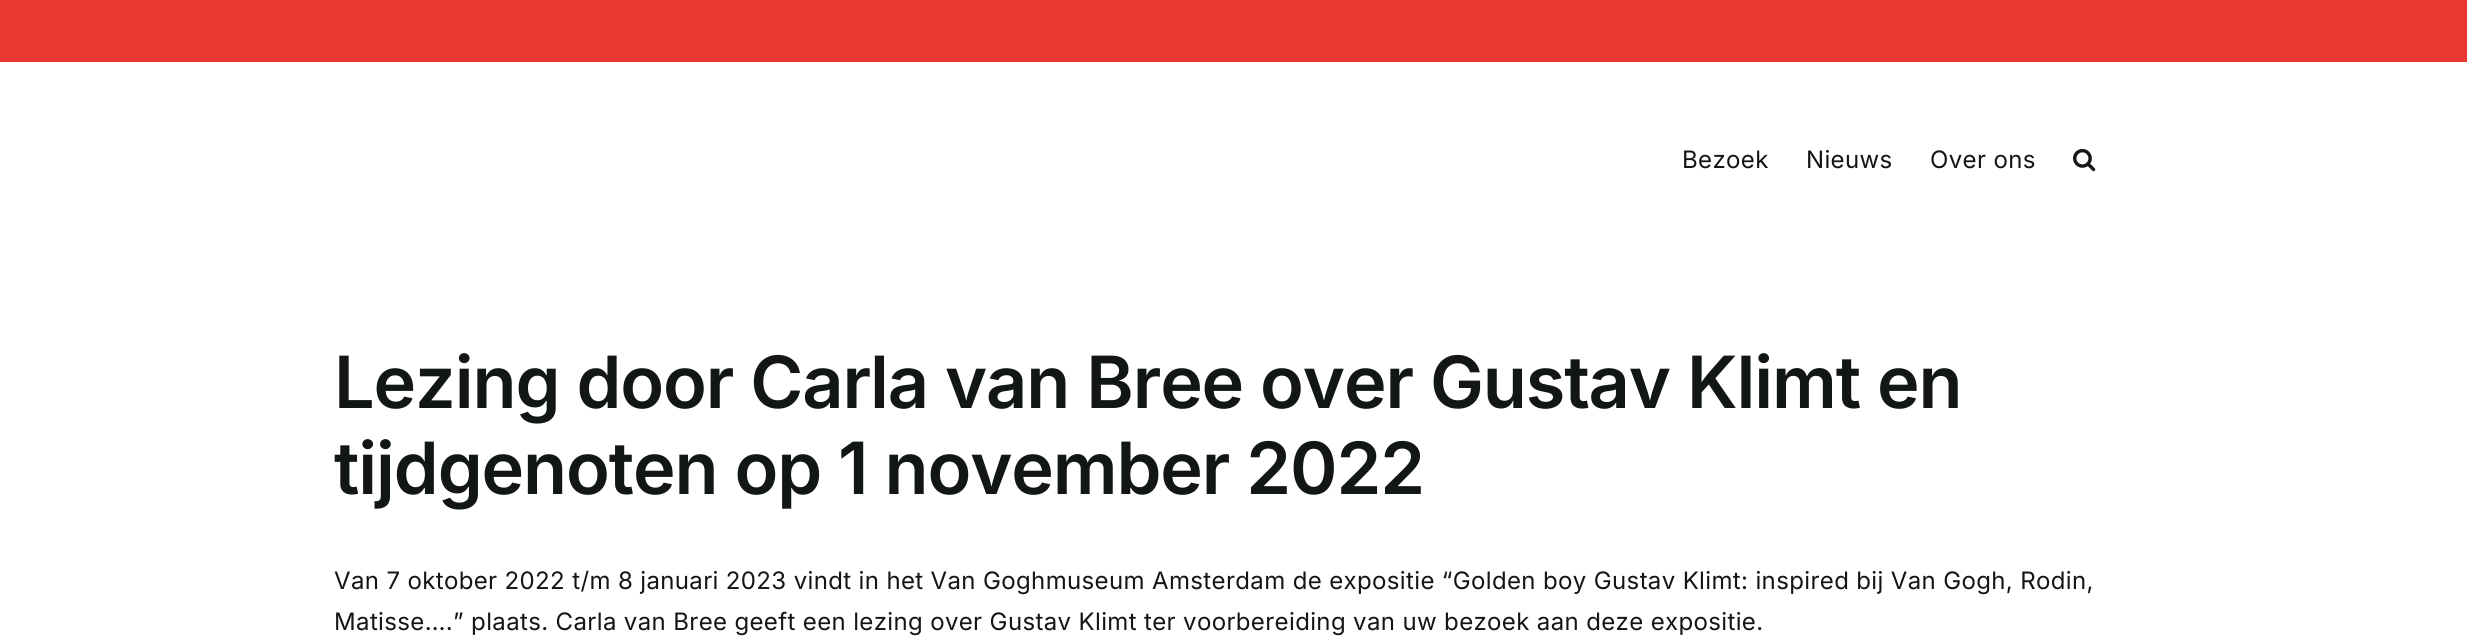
import math
import cairo


def write_spaced(ctx, x, y, s, letter, word):
	ctx.move_to(x, y)
	for ch in s:
		ctx.show_text(ch)
		ctx.rel_move_to(letter + word * (ch == ' '), 0)

def paste(ctx, path, x, y, w, h):
	ctx.save()
	ctx.set_source_surface(cairo.ImageSurface.create_from_png(path), x, y)
	ctx.rectangle(x, y, w, h)
	ctx.fill()
	ctx.restore()

def draw(ctx):
	ctx.set_source_rgb(1, 1, 1)
	ctx.paint()
	ctx.set_source_rgb(0.918, 0.216, 0.192)
	ctx.rectangle(0, 0, 2467, 62)
	ctx.fill()
	ctx.select_font_face('Inter')
	ctx.set_font_size(24)
	ctx.set_source_rgb(0.078, 0.086, 0.09)
	for x, y, s in [
		(1682, 168, 'Bezoek'),
		(1806, 168, 'Nieuws'),
		(1930, 168, 'Over ons'),
	]:
		write_spaced(ctx, x, y, s, 0.36, 0)
	paste(ctx, 'media/1.png', 2073, 148, 23, 24)
	ctx.select_font_face('Inter SemiBold')
	ctx.set_font_size(72)
	write_spaced(ctx, 334, 408, 'Lezing door Carla van Bree over Gustav Klimt en', -1.1, 0)
	write_spaced(ctx, 334, 494, 'tijdgenoten op 1 november 2022', -1.1, 0)
	ctx.select_font_face('Inter')
	ctx.set_font_size(24)
	write_spaced(ctx, 334, 589, 'Van 7 oktober 2022 t/m 8 januari 2023 vindt in het Van Goghmuseum Amsterdam de expositie “Golden boy Gustav Klimt: inspired bij Van Gogh, Rodin,', 0.36, 0)
	write_spaced(ctx, 334, 630, 'Matisse….” plaats. Carla van Bree geeft een lezing over Gustav Klimt ter voorbereiding van uw bezoek aan deze expositie.', 0.36, 0)


surface = cairo.ImageSurface(cairo.FORMAT_RGB24, 2467, 641)
ctx = cairo.Context(surface)
options = cairo.FontOptions()
options.set_hint_metrics(cairo.HINT_METRICS_OFF)
options.set_hint_style(cairo.HINT_STYLE_NONE)
ctx.set_font_options(options)
ctx.set_miter_limit(4)
draw(ctx)
surface.write_to_png('image.png')
